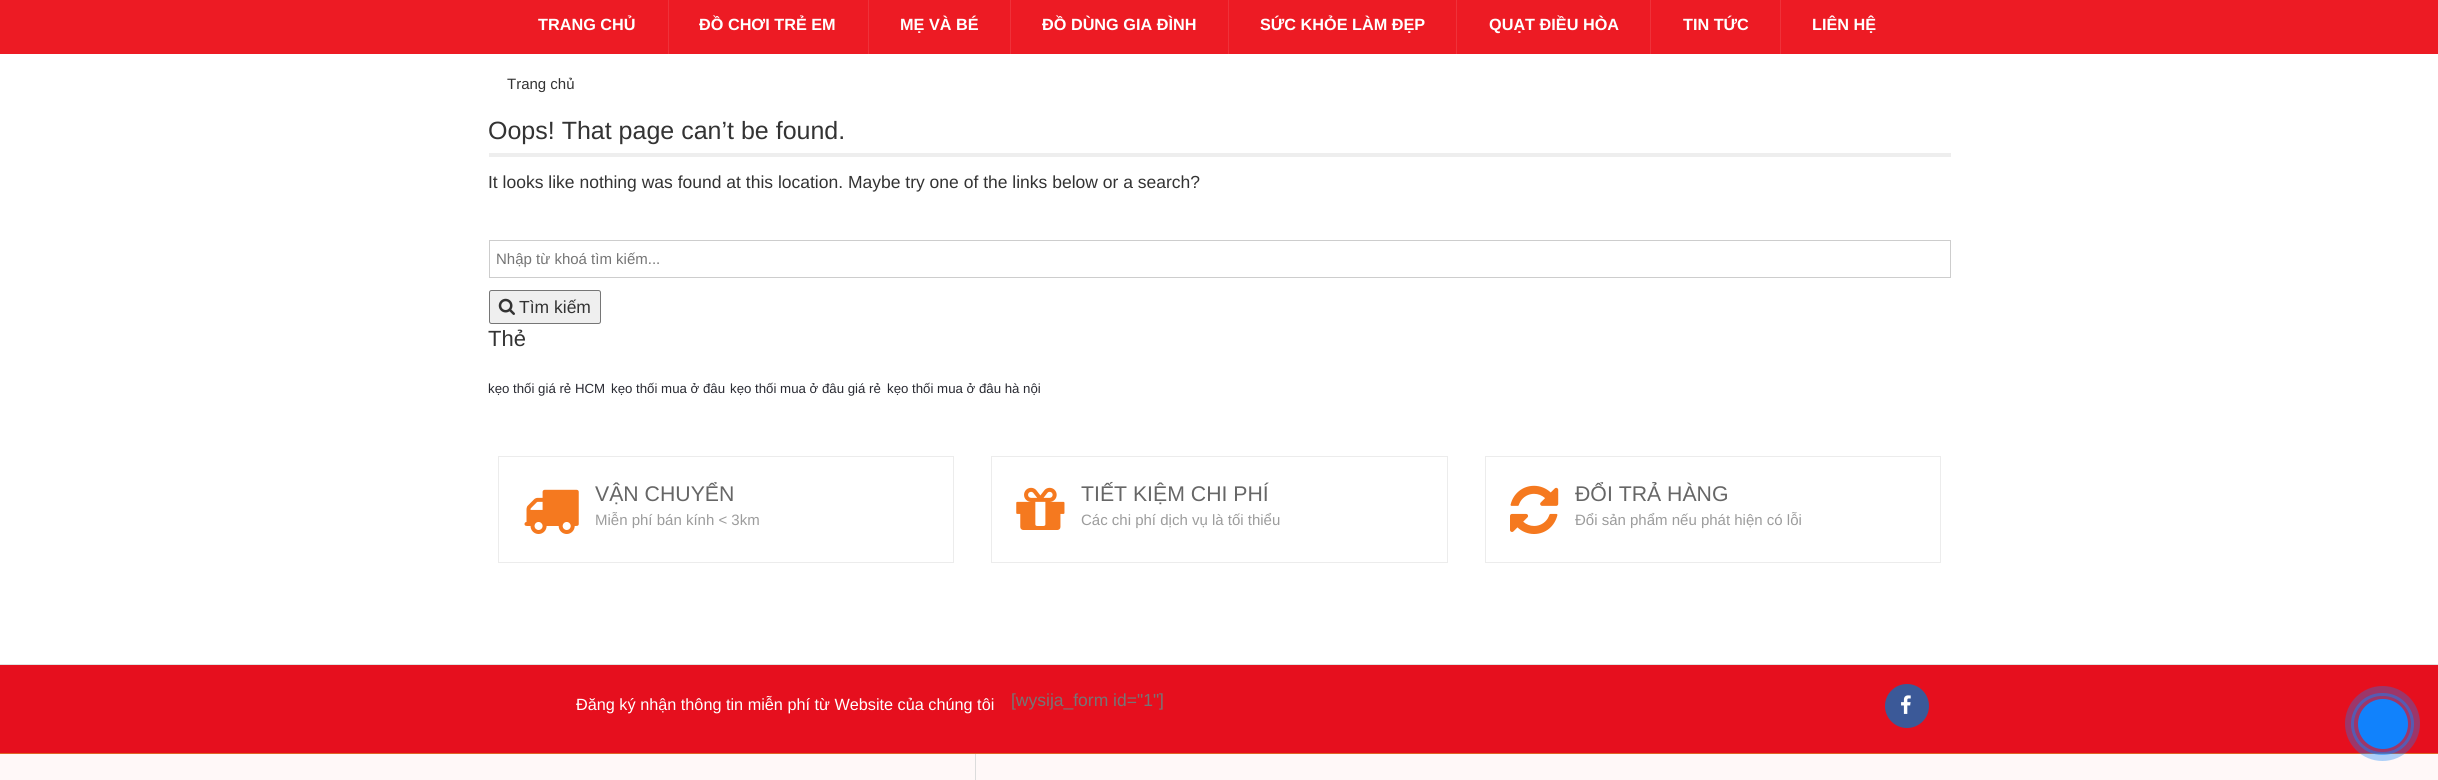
import math
import cairo


def round_path(ctx, x, y, w, h, r):
	ctx.new_sub_path()
	for i, (u, v) in enumerate([(x + w - r, y + h - r), (x + r, y + h - r), (x + r, y + r), (x + w - r, y + r)]):
		ctx.arc(u, v, r, i * math.pi / 2, (i + 1) * math.pi / 2)
	ctx.close_path()

def paste(ctx, path, x, y, w, h):
	ctx.save()
	ctx.set_source_surface(cairo.ImageSurface.create_from_png(path), x, y)
	ctx.rectangle(x, y, w, h)
	ctx.fill()
	ctx.restore()

def draw(ctx):
	ctx.set_source_rgb(1, 1, 1)
	ctx.paint()
	ctx.set_source_rgb(0.929, 0.106, 0.141)
	ctx.rectangle(0, 0, 2438, 54)
	ctx.fill()
	ctx.set_source_rgb(0.937, 0.196, 0.227)
	ctx.rectangle(668, 0, 1, 54)
	ctx.fill()
	ctx.select_font_face('Liberation Sans', cairo.FONT_SLANT_NORMAL, cairo.FONT_WEIGHT_BOLD)
	ctx.set_font_size(16.25)
	ctx.set_source_rgb(1, 1, 1)
	ctx.move_to(538, 30)
	ctx.show_text('TRANG CHỦ')
	ctx.set_source_rgb(0.937, 0.196, 0.227)
	ctx.rectangle(868, 0, 1, 54)
	ctx.fill()
	ctx.set_source_rgb(1, 1, 1)
	ctx.move_to(699, 30)
	ctx.show_text('ĐỒ CHƠI TRẺ EM')
	ctx.set_source_rgb(0.937, 0.196, 0.227)
	ctx.rectangle(1010, 0, 1, 54)
	ctx.fill()
	ctx.set_source_rgb(1, 1, 1)
	ctx.move_to(900, 30)
	ctx.show_text('MẸ VÀ BÉ')
	ctx.set_source_rgb(0.937, 0.196, 0.227)
	ctx.rectangle(1228, 0, 1, 54)
	ctx.fill()
	ctx.set_source_rgb(1, 1, 1)
	ctx.move_to(1042, 30)
	ctx.show_text('ĐỒ DÙNG GIA ĐÌNH')
	ctx.set_source_rgb(0.937, 0.196, 0.227)
	ctx.rectangle(1456, 0, 1, 54)
	ctx.fill()
	ctx.set_source_rgb(1, 1, 1)
	ctx.move_to(1260, 30)
	ctx.show_text('SỨC KHỎE LÀM ĐẸP')
	ctx.set_source_rgb(0.937, 0.196, 0.227)
	ctx.rectangle(1650, 0, 1, 54)
	ctx.fill()
	ctx.set_source_rgb(1, 1, 1)
	ctx.move_to(1489, 30)
	ctx.show_text('QUẠT ĐIỀU HÒA')
	ctx.set_source_rgb(0.937, 0.196, 0.227)
	ctx.rectangle(1780, 0, 1, 54)
	ctx.fill()
	ctx.set_source_rgb(1, 1, 1)
	ctx.move_to(1683, 30)
	ctx.show_text('TIN TỨC')
	ctx.move_to(1812, 30)
	ctx.show_text('LIÊN HỆ')
	ctx.select_font_face('Liberation Sans')
	ctx.set_font_size(15)
	ctx.set_source_rgb(0.2, 0.2, 0.2)
	ctx.move_to(507, 89)
	ctx.show_text('Trang chủ')
	ctx.set_source_rgb(0.933, 0.933, 0.933)
	ctx.rectangle(489, 153, 1462, 4)
	ctx.fill()
	ctx.set_font_size(25)
	ctx.set_source_rgb(0.2, 0.2, 0.2)
	ctx.move_to(488, 139)
	ctx.show_text('Oops! That page can’t be found.')
	ctx.set_font_size(17.5)
	ctx.move_to(488, 188)
	ctx.show_text('It looks like nothing was found at this location. Maybe try one of the links below or a search?')
	ctx.rectangle(489.5, 240.5, 1461, 37)
	ctx.set_source_rgb(0.804, 0.804, 0.804)
	ctx.set_line_width(1)
	ctx.stroke()
	ctx.set_font_size(15)
	ctx.set_source_rgb(0.459, 0.459, 0.459)
	ctx.move_to(496, 264)
	ctx.show_text('Nhập từ khoá tìm kiếm...')
	ctx.set_source_rgb(0.937, 0.937, 0.937)
	round_path(ctx, 489.5, 290.5, 111, 33, 2)
	ctx.fill_preserve()
	ctx.set_source_rgb(0.463, 0.463, 0.463)
	ctx.stroke()
	paste(ctx, 'media/1.png', 498, 298, 17, 17)
	ctx.set_font_size(17.5)
	ctx.set_source_rgb(0.2, 0.2, 0.2)
	ctx.move_to(519, 313)
	ctx.show_text('Tìm kiếm')
	ctx.set_font_size(22)
	ctx.move_to(488, 346)
	ctx.show_text('Thẻ')
	ctx.set_font_size(13.25)
	ctx.set_source_rgb(0.161, 0.165, 0.196)
	for x, y, s in [
		(488, 393, 'kẹo thối giá rẻ HCM'),
		(611, 393, 'kẹo thối mua ở đâu'),
		(730, 393, 'kẹo thối mua ở đâu giá rẻ'),
		(887, 393, 'kẹo thối mua ở đâu hà nội'),
	]:
		ctx.move_to(x, y)
		ctx.show_text(s)
	ctx.rectangle(498.5, 456.5, 455, 106)
	ctx.set_source_rgb(0.922, 0.922, 0.922)
	ctx.stroke()
	paste(ctx, 'media/2.png', 524, 489, 55, 45)
	ctx.set_font_size(21.25)
	ctx.set_source_rgb(0.4, 0.4, 0.4)
	ctx.move_to(595, 501)
	ctx.show_text('VẬN CHUYỂN')
	ctx.set_font_size(15)
	ctx.set_source_rgb(0.612, 0.612, 0.612)
	ctx.move_to(595, 525)
	ctx.show_text('Miễn phí bán kính < 3km')
	ctx.rectangle(991.5, 456.5, 456, 106)
	ctx.set_source_rgb(0.922, 0.922, 0.922)
	ctx.stroke()
	paste(ctx, 'media/3.png', 1016, 487, 49, 43)
	ctx.set_font_size(21.25)
	ctx.set_source_rgb(0.4, 0.4, 0.4)
	ctx.move_to(1081, 501)
	ctx.show_text('TIẾT KIỆM CHI PHÍ')
	ctx.set_font_size(15)
	ctx.set_source_rgb(0.612, 0.612, 0.612)
	ctx.move_to(1081, 525)
	ctx.show_text('Các chi phí dịch vụ là tối thiểu')
	ctx.rectangle(1485.5, 456.5, 455, 106)
	ctx.set_source_rgb(0.922, 0.922, 0.922)
	ctx.stroke()
	paste(ctx, 'media/4.png', 1510, 485, 49, 49)
	ctx.set_font_size(21.25)
	ctx.set_source_rgb(0.4, 0.4, 0.4)
	ctx.move_to(1575, 501)
	ctx.show_text('ĐỔI TRẢ HÀNG')
	ctx.set_font_size(15)
	ctx.set_source_rgb(0.612, 0.612, 0.612)
	ctx.move_to(1575, 525)
	ctx.show_text('Đổi sản phẩm nếu phát hiện có lỗi')
	ctx.set_source_rgb(0.902, 0.059, 0.118)
	ctx.rectangle(0, 665, 2438, 88)
	ctx.fill()
	ctx.set_source_rgb(0.882, 0.882, 0.882)
	ctx.rectangle(0, 664, 2438, 1)
	ctx.fill()
	ctx.set_font_size(16.25)
	ctx.set_source_rgb(1, 1, 1)
	ctx.move_to(576, 710)
	ctx.show_text('Đăng ký nhận thông tin miễn phí từ Website của chúng tôi')
	ctx.set_font_size(17.5)
	ctx.set_source_rgb(0.459, 0.459, 0.459)
	ctx.move_to(1011, 706)
	ctx.show_text('[wysija_form id="1"]')
	ctx.set_source_rgb(0.231, 0.349, 0.596)
	ctx.new_path()
	ctx.arc(1907, 706, 22, 0, 2 * math.pi)
	ctx.fill()
	paste(ctx, 'media/5.png', 1901, 695, 10, 19)
	ctx.set_source_rgb(1, 0.969, 0.969)
	ctx.rectangle(0, 754, 2438, 26)
	ctx.fill()
	ctx.set_source_rgb(0.875, 0.4, 0.153)
	ctx.rectangle(0, 753, 2438, 1)
	ctx.fill()
	ctx.set_source_rgb(0.863, 0.863, 0.863)
	ctx.rectangle(975, 754, 1, 26)
	ctx.fill()
	round_path(ctx, 2352.5, 694.5, 60, 59, 29.5)
	ctx.set_source_rgba(0.067, 0.51, 0.988, 0.5)
	ctx.set_line_width(3)
	ctx.stroke()
	ctx.set_source_rgba(0.067, 0.51, 0.988, 0.34)
	ctx.arc(2382.5, 723.5, 37.5, 0, 2 * math.pi)
	ctx.fill()
	ctx.set_source_rgb(0.067, 0.51, 0.988)
	ctx.arc(2383, 724, 25, 0, 2 * math.pi)
	ctx.fill()


surface = cairo.ImageSurface(cairo.FORMAT_RGB24, 2438, 780)
ctx = cairo.Context(surface)
options = cairo.FontOptions()
options.set_hint_metrics(cairo.HINT_METRICS_OFF)
options.set_hint_style(cairo.HINT_STYLE_NONE)
ctx.set_font_options(options)
ctx.set_miter_limit(4)
draw(ctx)
surface.write_to_png('image.png')
